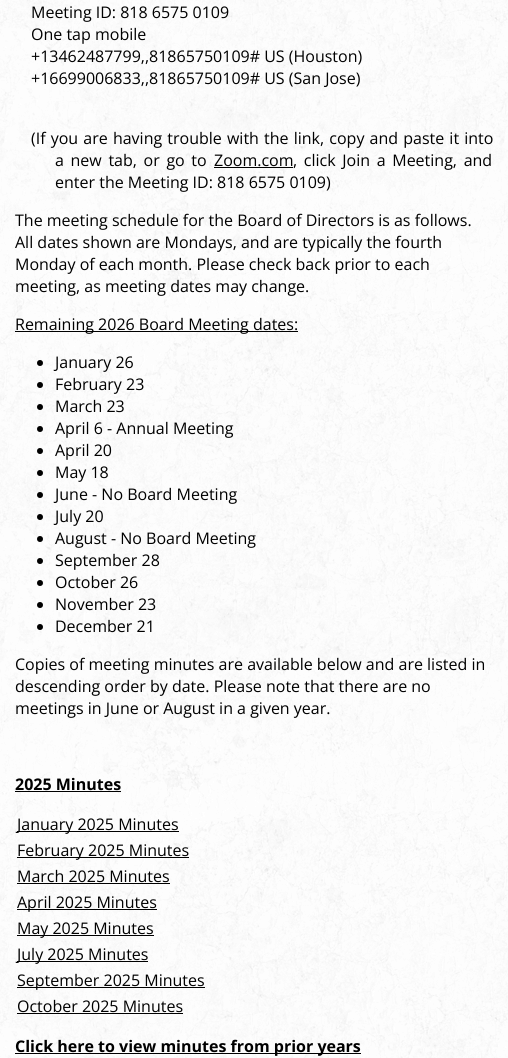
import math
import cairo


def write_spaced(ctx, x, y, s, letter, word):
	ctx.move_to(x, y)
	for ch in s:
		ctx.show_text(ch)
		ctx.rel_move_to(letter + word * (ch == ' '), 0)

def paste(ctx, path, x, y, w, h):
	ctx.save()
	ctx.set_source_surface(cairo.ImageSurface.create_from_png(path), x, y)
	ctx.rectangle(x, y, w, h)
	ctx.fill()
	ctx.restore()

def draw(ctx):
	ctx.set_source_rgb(1, 1, 1)
	ctx.paint()
	paste(ctx, 'media/1.png', 0, 0, 508, 1058)
	ctx.select_font_face('Open Sans')
	ctx.set_font_size(16)
	ctx.set_source_rgb(0, 0, 0)
	for x, y, s in [
		(31, 18, 'Meeting ID: 818 6575 0109'),
		(31, 40, 'One tap mobile'),
		(31, 62, '+13462487799,,81865750109# US (Houston)'),
		(31, 84, '+16699006833,,81865750109# US (San Jose)'),
	]:
		ctx.move_to(x, y)
		ctx.show_text(s)
	write_spaced(ctx, 31, 144, '(If you are having trouble with the link, copy and paste it into', 0, 1)
	write_spaced(ctx, 55, 166, 'a new tab, or go to', 0, 2.5)
	ctx.move_to(214, 166)
	ctx.show_text('Zoom.com')
	ctx.rectangle(214, 167, 79, 1)
	ctx.fill()
	write_spaced(ctx, 293, 166, ', click Join a Meeting, and', 0, 2.5)
	for x, y, s in [
		(55, 188, 'enter the Meeting ID: 818 6575 0109)'),
		(15, 226, 'The meeting schedule for the Board of Directors is as follows.'),
		(15, 248, 'All dates shown are Mondays, and are typically the fourth'),
		(15, 270, 'Monday of each month. Please check back prior to each'),
		(15, 292, 'meeting, as meeting dates may change.'),
	]:
		ctx.move_to(x, y)
		ctx.show_text(s)
	ctx.rectangle(15, 331, 283, 1)
	ctx.fill()
	ctx.move_to(15, 330)
	ctx.show_text('Remaining 2026 Board Meeting dates:')
	ctx.new_path()
	ctx.arc(40, 363, 3, 0, 2 * math.pi)
	ctx.fill()
	ctx.move_to(55, 368)
	ctx.show_text('January 26')
	ctx.new_path()
	ctx.arc(40, 385, 3, 0, 2 * math.pi)
	ctx.fill()
	ctx.move_to(55, 390)
	ctx.show_text('February 23')
	ctx.new_path()
	ctx.arc(40, 407, 3, 0, 2 * math.pi)
	ctx.fill()
	ctx.move_to(55, 412)
	ctx.show_text('March 23')
	ctx.new_path()
	ctx.arc(40, 429, 3, 0, 2 * math.pi)
	ctx.fill()
	ctx.move_to(55, 434)
	ctx.show_text('April 6 - Annual Meeting')
	ctx.new_path()
	ctx.arc(40, 451, 3, 0, 2 * math.pi)
	ctx.fill()
	ctx.move_to(55, 456)
	ctx.show_text('April 20')
	ctx.new_path()
	ctx.arc(40, 473, 3, 0, 2 * math.pi)
	ctx.fill()
	ctx.move_to(55, 478)
	ctx.show_text('May 18')
	ctx.new_path()
	ctx.arc(40, 495, 3, 0, 2 * math.pi)
	ctx.fill()
	ctx.move_to(55, 500)
	ctx.show_text('June - No Board Meeting')
	ctx.new_path()
	ctx.arc(40, 517, 3, 0, 2 * math.pi)
	ctx.fill()
	ctx.move_to(55, 522)
	ctx.show_text('July 20')
	ctx.new_path()
	ctx.arc(40, 539, 3, 0, 2 * math.pi)
	ctx.fill()
	ctx.move_to(55, 544)
	ctx.show_text('August - No Board Meeting')
	ctx.new_path()
	ctx.arc(40, 561, 3, 0, 2 * math.pi)
	ctx.fill()
	ctx.move_to(55, 566)
	ctx.show_text('September 28')
	ctx.new_path()
	ctx.arc(40, 583, 3, 0, 2 * math.pi)
	ctx.fill()
	ctx.move_to(55, 588)
	ctx.show_text('October 26')
	ctx.new_path()
	ctx.arc(40, 605, 3, 0, 2 * math.pi)
	ctx.fill()
	ctx.move_to(55, 610)
	ctx.show_text('November 23')
	ctx.new_path()
	ctx.arc(40, 627, 3, 0, 2 * math.pi)
	ctx.fill()
	for x, y, s in [
		(55, 632, 'December 21'),
		(15, 670, 'Copies of meeting minutes are available below and are listed in'),
		(15, 692, 'descending order by date. Please note that there are no'),
		(15, 714, 'meetings in June or August in a given year.'),
	]:
		ctx.move_to(x, y)
		ctx.show_text(s)
	ctx.select_font_face('Open Sans', cairo.FONT_SLANT_NORMAL, cairo.FONT_WEIGHT_BOLD)
	ctx.move_to(15, 790)
	ctx.show_text('2025 Minutes')
	ctx.rectangle(15, 791, 106, 1)
	ctx.fill()
	ctx.rectangle(17, 831, 162, 1)
	ctx.fill()
	ctx.select_font_face('Open Sans')
	ctx.move_to(17, 830)
	ctx.show_text('January 2025 Minutes')
	ctx.rectangle(17, 857, 172, 1)
	ctx.fill()
	ctx.move_to(17, 856)
	ctx.show_text('February 2025 Minutes')
	ctx.move_to(17, 882)
	ctx.show_text('March 2025 Minutes')
	ctx.rectangle(17, 883, 153, 1)
	ctx.fill()
	ctx.rectangle(17, 909, 140, 1)
	ctx.fill()
	ctx.move_to(17, 908)
	ctx.show_text('April 2025 Minutes')
	ctx.rectangle(17, 935, 137, 1)
	ctx.fill()
	ctx.move_to(17, 934)
	ctx.show_text('May 2025 Minutes')
	ctx.rectangle(17, 961, 131, 1)
	ctx.fill()
	ctx.move_to(17, 960)
	ctx.show_text('July 2025 Minutes')
	ctx.rectangle(17, 987, 188, 1)
	ctx.fill()
	ctx.move_to(17, 986)
	ctx.show_text('September 2025 Minutes')
	ctx.move_to(17, 1012)
	ctx.show_text('October 2025 Minutes')
	ctx.rectangle(17, 1013, 166, 1)
	ctx.fill()
	ctx.rectangle(15, 1053, 346, 1)
	ctx.fill()
	ctx.select_font_face('Open Sans', cairo.FONT_SLANT_NORMAL, cairo.FONT_WEIGHT_BOLD)
	ctx.move_to(15, 1052)
	ctx.show_text('Click here to view minutes from prior years')


surface = cairo.ImageSurface(cairo.FORMAT_RGB24, 508, 1058)
ctx = cairo.Context(surface)
options = cairo.FontOptions()
options.set_hint_metrics(cairo.HINT_METRICS_OFF)
options.set_hint_style(cairo.HINT_STYLE_NONE)
ctx.set_font_options(options)
ctx.set_miter_limit(4)
draw(ctx)
surface.write_to_png('image.png')
